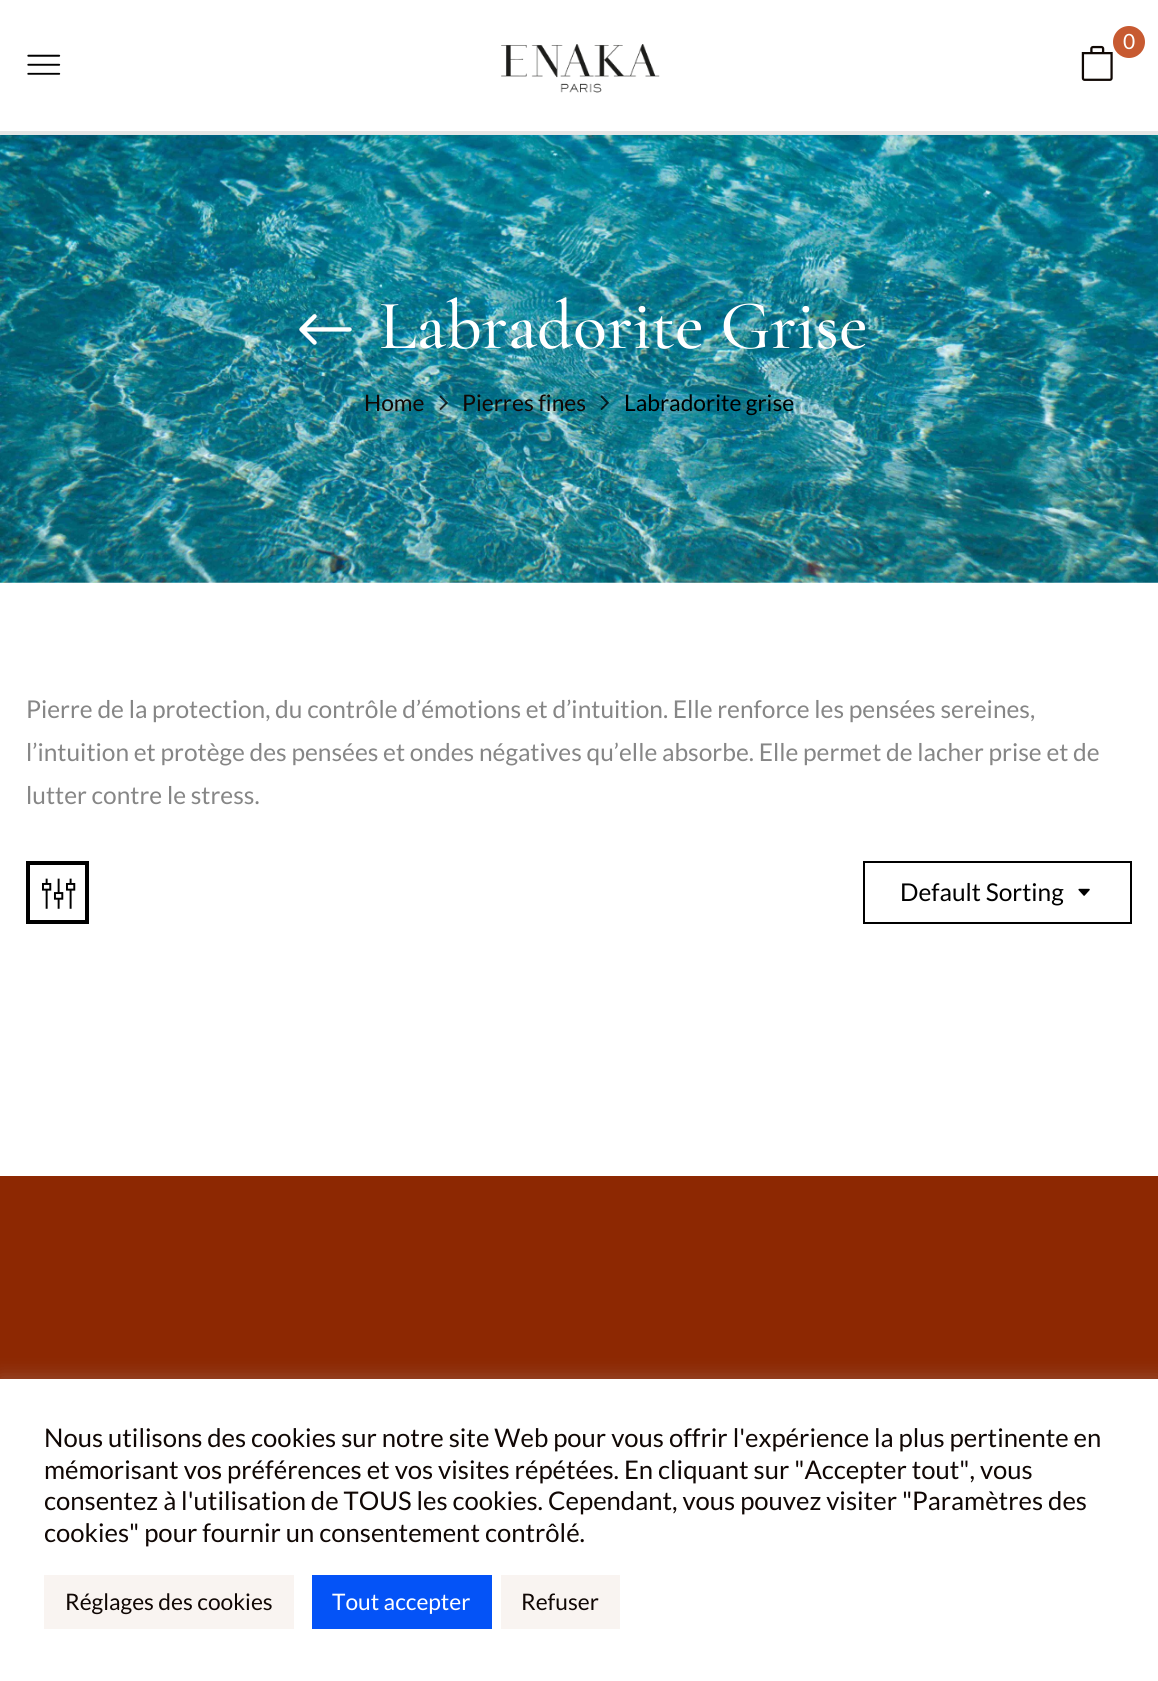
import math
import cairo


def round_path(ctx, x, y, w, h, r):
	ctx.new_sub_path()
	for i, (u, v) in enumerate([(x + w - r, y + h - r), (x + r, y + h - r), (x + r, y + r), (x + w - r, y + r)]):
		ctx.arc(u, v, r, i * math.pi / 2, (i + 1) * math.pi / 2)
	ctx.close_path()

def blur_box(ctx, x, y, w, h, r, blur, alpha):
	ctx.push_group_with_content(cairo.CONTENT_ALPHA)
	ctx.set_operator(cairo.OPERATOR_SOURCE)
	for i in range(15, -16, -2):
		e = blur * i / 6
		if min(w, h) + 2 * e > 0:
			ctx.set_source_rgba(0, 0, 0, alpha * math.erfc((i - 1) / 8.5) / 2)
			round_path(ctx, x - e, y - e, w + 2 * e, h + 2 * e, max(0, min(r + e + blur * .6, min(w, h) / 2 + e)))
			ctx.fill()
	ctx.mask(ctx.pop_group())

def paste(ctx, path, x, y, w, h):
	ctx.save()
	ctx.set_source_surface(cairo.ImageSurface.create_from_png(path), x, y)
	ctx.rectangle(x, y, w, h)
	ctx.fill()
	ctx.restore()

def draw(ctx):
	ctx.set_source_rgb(1, 1, 1)
	ctx.paint()
	ctx.set_source_rgb(0.898, 0.898, 0.898)
	ctx.rectangle(0, 131, 1158, 4)
	ctx.fill()
	ctx.set_source_rgb(0.78, 0.353, 0.192)
	ctx.arc(1129, 42, 16, 0, 2 * math.pi)
	ctx.fill()
	ctx.select_font_face('Lato')
	ctx.set_font_size(21)
	ctx.set_source_rgb(1, 1, 1)
	ctx.move_to(1123, 49)
	ctx.show_text('0')
	paste(ctx, 'media/1.png', 1081, 45, 32, 36)
	paste(ctx, 'media/2.png', 27, 54, 34, 21)
	paste(ctx, 'media/3.png', 501, 44, 159, 49)
	paste(ctx, 'media/4.png', 0, 135, 1158, 448)
	paste(ctx, 'media/5.png', 299, 314, 53, 31)
	ctx.select_font_face('Cormorant Garamond Medium')
	ctx.set_font_size(70)
	ctx.move_to(379, 348)
	ctx.show_text('Labradorite Grise')
	ctx.select_font_face('Lato')
	ctx.set_font_size(22.75)
	ctx.set_source_rgb(0.063, 0.031, 0.016)
	ctx.move_to(364, 411)
	ctx.show_text('Home')
	paste(ctx, 'media/6.png', 439, 395, 9, 16)
	ctx.move_to(462, 411)
	ctx.show_text('Pierres fines')
	paste(ctx, 'media/7.png', 600, 395, 9, 15)
	ctx.set_source_rgb(0, 0, 0)
	ctx.move_to(624, 411)
	ctx.show_text('Labradorite grise')
	ctx.set_font_size(24.5)
	ctx.set_source_rgb(0.525, 0.525, 0.525)
	for x, y, s in [
		(26, 718, 'Pierre de la protection, du contrôle d’émotions et d’intuition. Elle renforce les pensées sereines,'),
		(26, 761, 'l’intuition et protège des pensées et ondes négatives qu’elle absorbe. Elle permet de lacher prise et de'),
		(26, 804, 'lutter contre le stress.'),
	]:
		ctx.move_to(x, y)
		ctx.show_text(s)
	ctx.rectangle(28, 863, 59, 59)
	ctx.set_source_rgb(0, 0, 0)
	ctx.set_line_width(4)
	ctx.stroke()
	paste(ctx, 'media/8.png', 42, 878, 34, 31)
	ctx.rectangle(864, 862, 267, 61)
	ctx.set_line_width(2)
	ctx.stroke()
	ctx.move_to(900, 901)
	ctx.show_text('Default Sorting')
	paste(ctx, 'media/9.png', 1078, 888, 12, 8)
	ctx.set_source_rgb(0.553, 0.157, 0.008)
	ctx.rectangle(0, 1176, 1158, 203)
	ctx.fill()
	ctx.set_source_rgb(0.675, 0.671, 0.671)
	blur_box(ctx, 0, 1377, 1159, 303, 0, 9, 0.3)
	ctx.set_source_rgb(1, 1, 1)
	ctx.rectangle(0, 1379, 1158, 302)
	ctx.fill()
	ctx.set_font_size(25.65)
	ctx.set_source_rgb(0.063, 0.031, 0.016)
	for x, y, s in [
		(44, 1447, 'Nous utilisons des cookies sur notre site Web pour vous offrir l\'expérience la plus pertinente en'),
		(44, 1479, 'mémorisant vos préférences et vos visites répétées. En cliquant sur "Accepter tout", vous'),
		(44, 1510, 'consentez à l\'utilisation de TOUS les cookies. Cependant, vous pouvez visiter "Paramètres des'),
		(44, 1542, 'cookies" pour fournir un consentement contrôlé.'),
	]:
		ctx.move_to(x, y)
		ctx.show_text(s)
	ctx.set_source_rgb(0.973, 0.957, 0.945)
	ctx.rectangle(44, 1575, 250, 54)
	ctx.fill()
	ctx.set_font_size(22.75)
	ctx.set_source_rgb(0.063, 0.031, 0.016)
	ctx.move_to(65, 1610)
	ctx.show_text('Réglages des cookies')
	ctx.set_source_rgb(0.016, 0.325, 0.965)
	ctx.rectangle(312, 1575, 180, 54)
	ctx.fill()
	ctx.set_source_rgb(1, 1, 1)
	ctx.move_to(332, 1610)
	ctx.show_text('Tout accepter')
	ctx.set_source_rgb(0.973, 0.957, 0.945)
	ctx.rectangle(501, 1575, 119, 54)
	ctx.fill()
	ctx.set_source_rgb(0.063, 0.031, 0.016)
	ctx.move_to(521, 1610)
	ctx.show_text('Refuser')


surface = cairo.ImageSurface(cairo.FORMAT_RGB24, 1158, 1681)
ctx = cairo.Context(surface)
options = cairo.FontOptions()
options.set_hint_metrics(cairo.HINT_METRICS_OFF)
options.set_hint_style(cairo.HINT_STYLE_NONE)
ctx.set_font_options(options)
ctx.set_miter_limit(4)
draw(ctx)
surface.write_to_png('image.png')
